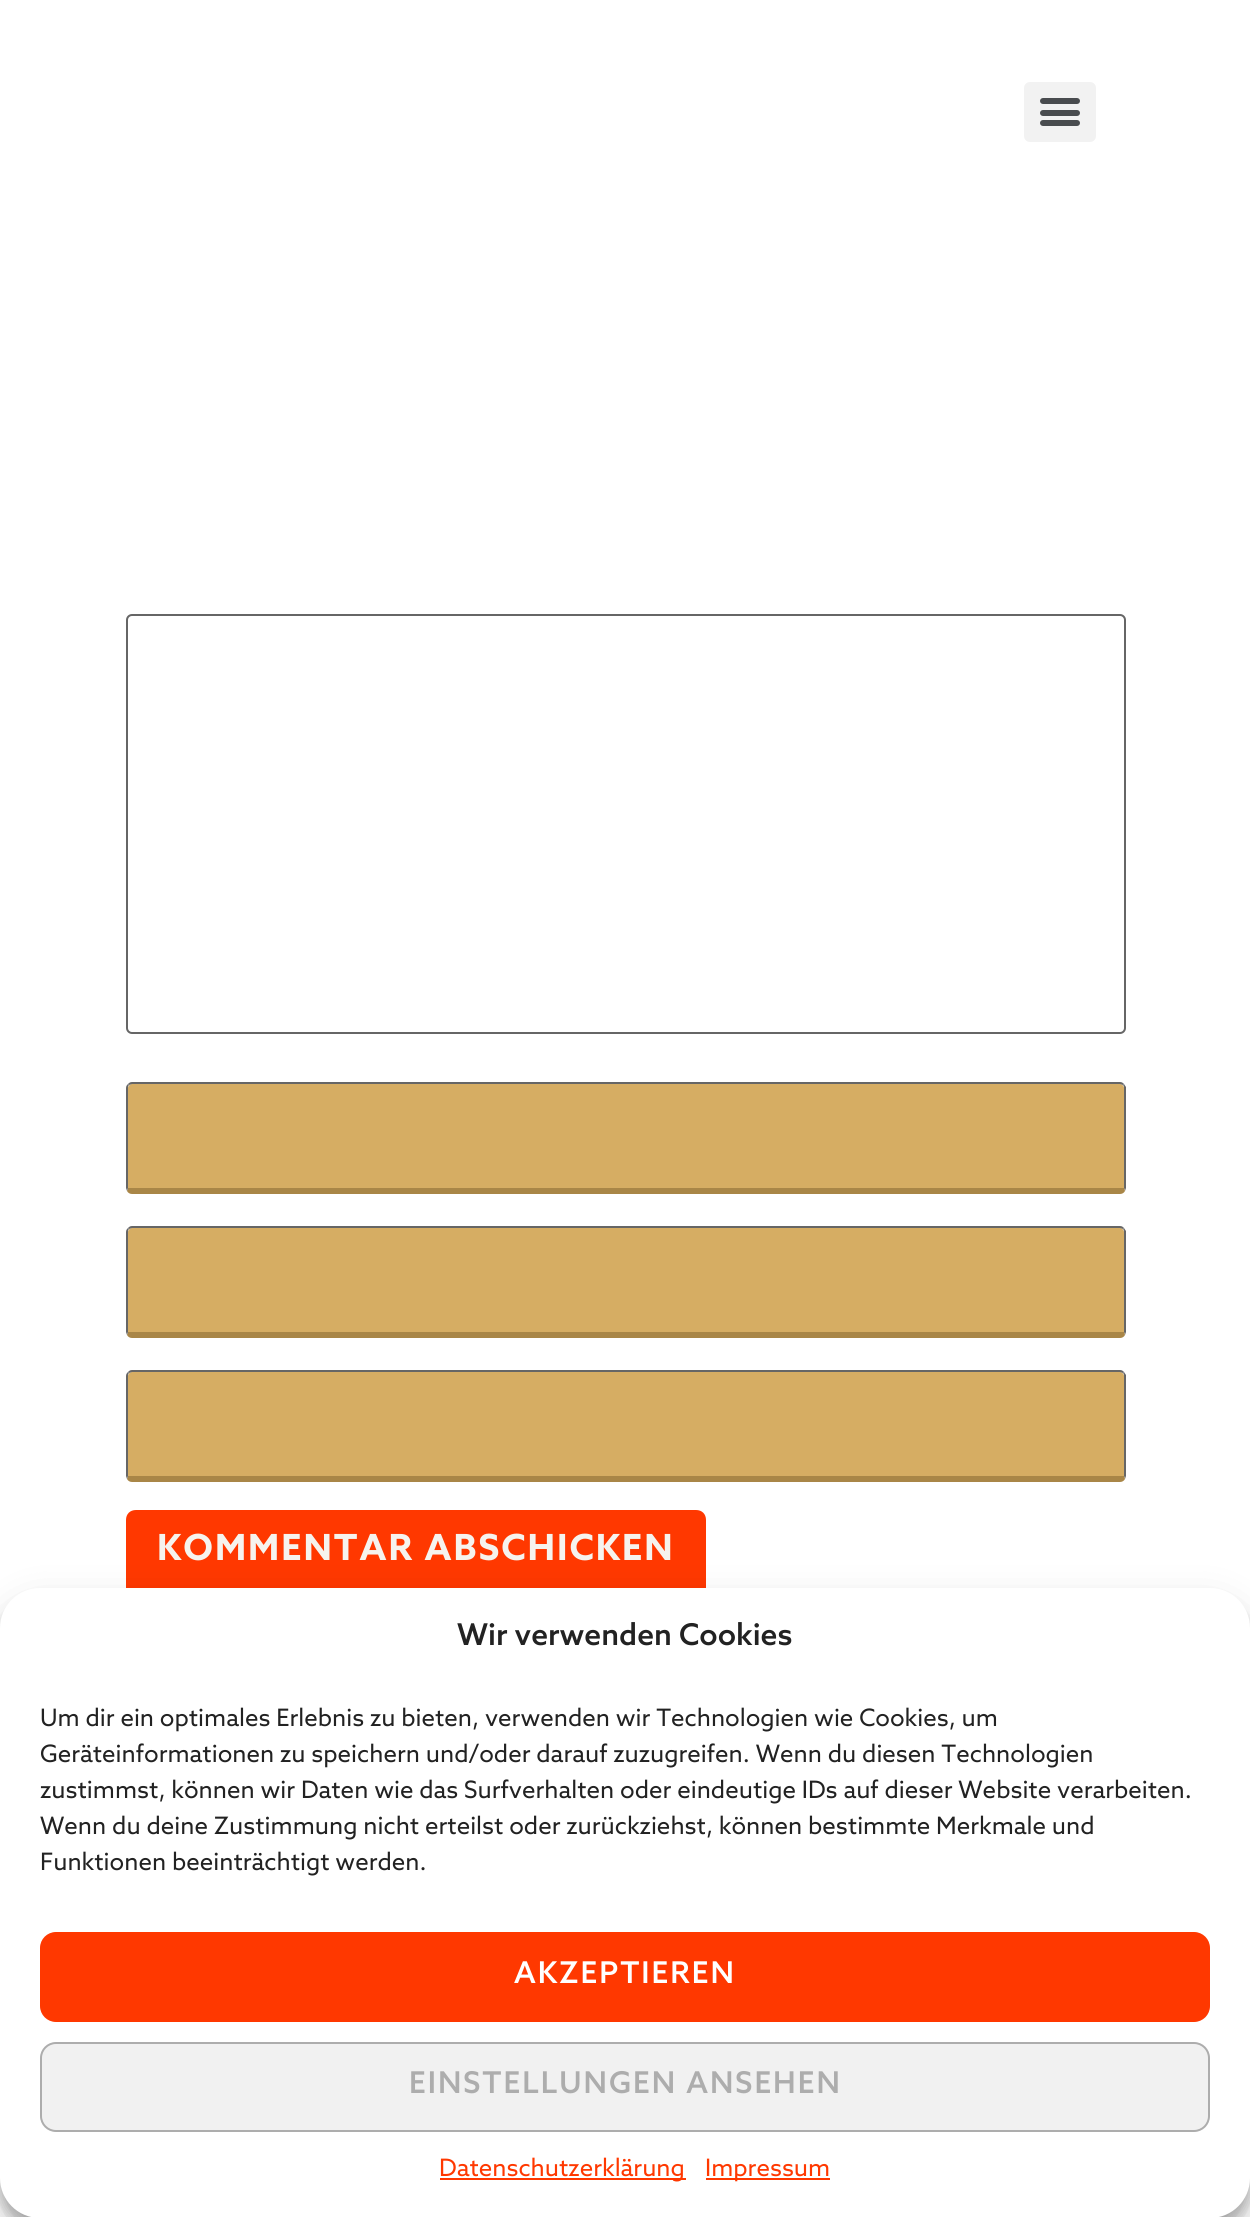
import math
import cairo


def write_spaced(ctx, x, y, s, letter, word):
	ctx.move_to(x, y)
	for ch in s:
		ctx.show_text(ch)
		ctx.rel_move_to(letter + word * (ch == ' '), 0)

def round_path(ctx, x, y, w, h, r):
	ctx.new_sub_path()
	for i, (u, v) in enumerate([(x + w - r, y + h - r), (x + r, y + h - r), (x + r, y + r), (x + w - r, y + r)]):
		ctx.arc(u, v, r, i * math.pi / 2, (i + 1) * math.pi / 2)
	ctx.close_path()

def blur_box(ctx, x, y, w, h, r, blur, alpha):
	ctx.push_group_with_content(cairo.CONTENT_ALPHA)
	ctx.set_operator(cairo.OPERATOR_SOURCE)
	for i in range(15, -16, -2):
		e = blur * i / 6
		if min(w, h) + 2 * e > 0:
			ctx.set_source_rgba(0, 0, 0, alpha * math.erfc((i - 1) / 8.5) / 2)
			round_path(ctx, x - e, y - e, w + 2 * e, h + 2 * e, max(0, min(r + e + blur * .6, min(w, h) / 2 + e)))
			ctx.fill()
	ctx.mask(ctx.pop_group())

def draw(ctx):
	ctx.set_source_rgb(1, 1, 1)
	ctx.paint()
	ctx.set_source_rgb(0.949, 0.949, 0.949)
	round_path(ctx, 1024, 82, 72, 60, 6)
	ctx.fill()
	ctx.set_source_rgb(0.286, 0.298, 0.31)
	round_path(ctx, 1040, 110, 40, 6, 3)
	ctx.fill()
	round_path(ctx, 1040, 98, 40, 6, 3)
	ctx.fill()
	round_path(ctx, 1040, 120, 40, 6, 3)
	ctx.fill()
	round_path(ctx, 127, 615, 998, 418, 5)
	ctx.set_source_rgb(0.4, 0.4, 0.4)
	ctx.stroke()
	ctx.set_source_rgb(0.839, 0.678, 0.388)
	ctx.new_path()
	ctx.move_to(132, 1084)
	ctx.line_to(1120, 1084)
	ctx.curve_to(1122, 1084, 1124, 1086, 1124, 1088)
	ctx.line_to(1124, 1188)
	ctx.line_to(128, 1188)
	ctx.line_to(128, 1088)
	ctx.curve_to(128, 1086, 130, 1084, 132, 1084)
	ctx.close_path()
	ctx.fill()
	ctx.set_source_rgb(0.4, 0.4, 0.4)
	ctx.new_path()
	ctx.move_to(132, 1082)
	ctx.curve_to(130, 1082, 129, 1083, 128, 1084)
	ctx.line_to(129, 1085)
	ctx.line_to(132, 1084)
	ctx.line_to(1120, 1084)
	ctx.line_to(1123, 1085)
	ctx.line_to(1124, 1084)
	ctx.curve_to(1123, 1083, 1122, 1082, 1120, 1082)
	ctx.close_path()
	ctx.fill()
	ctx.new_path()
	ctx.move_to(1126, 1188)
	ctx.line_to(1126, 1087)
	ctx.line_to(1124, 1084)
	ctx.line_to(1123, 1085)
	ctx.curve_to(1124, 1086, 1124, 1087, 1124, 1088)
	ctx.line_to(1124, 1188)
	ctx.line_to(1125, 1191)
	ctx.close_path()
	ctx.fill()
	ctx.set_source_rgb(0.663, 0.525, 0.278)
	ctx.new_path()
	ctx.move_to(132, 1194)
	ctx.line_to(1120, 1194)
	ctx.curve_to(1122, 1194, 1124, 1193, 1125, 1191)
	ctx.line_to(1124, 1188)
	ctx.line_to(128, 1188)
	ctx.line_to(127, 1191)
	ctx.curve_to(128, 1193, 130, 1194, 132, 1194)
	ctx.close_path()
	ctx.fill()
	ctx.set_source_rgb(0.4, 0.4, 0.4)
	ctx.new_path()
	ctx.move_to(126, 1088)
	ctx.line_to(126, 1188)
	ctx.line_to(127, 1191)
	ctx.line_to(128, 1188)
	ctx.line_to(128, 1088)
	ctx.curve_to(128, 1087, 128, 1086, 129, 1085)
	ctx.line_to(128, 1084)
	ctx.curve_to(127, 1085, 126, 1086, 126, 1088)
	ctx.close_path()
	ctx.fill()
	ctx.set_source_rgb(0.839, 0.678, 0.388)
	ctx.new_path()
	ctx.move_to(132, 1228)
	ctx.line_to(1120, 1228)
	ctx.curve_to(1122, 1228, 1124, 1230, 1124, 1232)
	ctx.line_to(1124, 1332)
	ctx.line_to(128, 1332)
	ctx.line_to(128, 1232)
	ctx.curve_to(128, 1230, 130, 1228, 132, 1228)
	ctx.close_path()
	ctx.fill()
	ctx.set_source_rgb(0.4, 0.4, 0.4)
	ctx.new_path()
	ctx.move_to(132, 1226)
	ctx.curve_to(130, 1226, 129, 1227, 128, 1228)
	ctx.line_to(129, 1229)
	ctx.line_to(132, 1228)
	ctx.line_to(1120, 1228)
	ctx.line_to(1123, 1229)
	ctx.line_to(1124, 1228)
	ctx.curve_to(1123, 1227, 1122, 1226, 1120, 1226)
	ctx.close_path()
	ctx.fill()
	ctx.new_path()
	ctx.move_to(1126, 1332)
	ctx.line_to(1126, 1231)
	ctx.line_to(1124, 1228)
	ctx.line_to(1123, 1229)
	ctx.curve_to(1124, 1230, 1124, 1231, 1124, 1232)
	ctx.line_to(1124, 1332)
	ctx.line_to(1125, 1335)
	ctx.close_path()
	ctx.fill()
	ctx.set_source_rgb(0.663, 0.525, 0.278)
	ctx.new_path()
	ctx.move_to(132, 1338)
	ctx.line_to(1120, 1338)
	ctx.curve_to(1122, 1338, 1124, 1337, 1125, 1335)
	ctx.line_to(1124, 1332)
	ctx.line_to(128, 1332)
	ctx.line_to(127, 1335)
	ctx.curve_to(128, 1337, 130, 1338, 132, 1338)
	ctx.close_path()
	ctx.fill()
	ctx.set_source_rgb(0.4, 0.4, 0.4)
	ctx.new_path()
	ctx.move_to(126, 1232)
	ctx.line_to(126, 1332)
	ctx.line_to(127, 1335)
	ctx.line_to(128, 1332)
	ctx.line_to(128, 1232)
	ctx.curve_to(128, 1231, 128, 1230, 129, 1229)
	ctx.line_to(128, 1228)
	ctx.curve_to(127, 1229, 126, 1230, 126, 1232)
	ctx.close_path()
	ctx.fill()
	ctx.set_source_rgb(0.839, 0.678, 0.388)
	ctx.new_path()
	ctx.move_to(132, 1372)
	ctx.line_to(1120, 1372)
	ctx.curve_to(1122, 1372, 1124, 1374, 1124, 1376)
	ctx.line_to(1124, 1476)
	ctx.line_to(128, 1476)
	ctx.line_to(128, 1376)
	ctx.curve_to(128, 1374, 130, 1372, 132, 1372)
	ctx.close_path()
	ctx.fill()
	ctx.set_source_rgb(0.4, 0.4, 0.4)
	ctx.new_path()
	ctx.move_to(132, 1370)
	ctx.curve_to(130, 1370, 129, 1371, 128, 1372)
	ctx.line_to(129, 1373)
	ctx.line_to(132, 1372)
	ctx.line_to(1120, 1372)
	ctx.line_to(1123, 1373)
	ctx.line_to(1124, 1372)
	ctx.curve_to(1123, 1371, 1122, 1370, 1120, 1370)
	ctx.close_path()
	ctx.fill()
	ctx.new_path()
	ctx.move_to(1126, 1476)
	ctx.line_to(1126, 1375)
	ctx.line_to(1124, 1372)
	ctx.line_to(1123, 1373)
	ctx.curve_to(1124, 1374, 1124, 1375, 1124, 1376)
	ctx.line_to(1124, 1476)
	ctx.line_to(1125, 1479)
	ctx.close_path()
	ctx.fill()
	ctx.set_source_rgb(0.663, 0.525, 0.278)
	ctx.new_path()
	ctx.move_to(132, 1482)
	ctx.line_to(1120, 1482)
	ctx.curve_to(1122, 1482, 1124, 1481, 1125, 1479)
	ctx.line_to(1124, 1476)
	ctx.line_to(128, 1476)
	ctx.line_to(127, 1479)
	ctx.curve_to(128, 1481, 130, 1482, 132, 1482)
	ctx.close_path()
	ctx.fill()
	ctx.set_source_rgb(0.4, 0.4, 0.4)
	ctx.new_path()
	ctx.move_to(126, 1376)
	ctx.line_to(126, 1476)
	ctx.line_to(127, 1479)
	ctx.line_to(128, 1476)
	ctx.line_to(128, 1376)
	ctx.curve_to(128, 1375, 128, 1374, 129, 1373)
	ctx.line_to(128, 1372)
	ctx.curve_to(127, 1373, 126, 1374, 126, 1376)
	ctx.close_path()
	ctx.fill()
	ctx.set_source_rgb(1, 0.22, 0)
	ctx.new_path()
	ctx.move_to(136, 1510)
	ctx.line_to(696, 1510)
	ctx.curve_to(702, 1510, 706, 1514, 706, 1520)
	ctx.line_to(706, 1592)
	ctx.curve_to(706, 1594, 702, 1596, 696, 1596)
	ctx.line_to(136, 1596)
	ctx.curve_to(130, 1596, 126, 1594, 126, 1592)
	ctx.line_to(126, 1520)
	ctx.curve_to(126, 1514, 130, 1510, 136, 1510)
	ctx.close_path()
	ctx.fill()
	ctx.select_font_face('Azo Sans', cairo.FONT_SLANT_NORMAL, cairo.FONT_WEIGHT_BOLD)
	ctx.set_font_size(36)
	ctx.set_source_rgb(0.961, 0.953, 0.933)
	write_spaced(ctx, 157, 1560, 'KOMMENTAR ABSCHICKEN', 2, 0)
	ctx.set_source_rgb(0, 0, 0)
	blur_box(ctx, 0, 1600, 1250, 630, 40, 6, 0.23)
	blur_box(ctx, 0, 1608, 1250, 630, 40, 20, 0.19)
	ctx.set_source_rgb(1, 1, 1)
	round_path(ctx, 0, 1588, 1250, 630, 40)
	ctx.fill()
	ctx.select_font_face('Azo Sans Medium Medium')
	ctx.set_font_size(30)
	ctx.set_source_rgb(0.133, 0.133, 0.133)
	ctx.move_to(457, 1645)
	ctx.show_text('Wir verwenden Cookies')
	ctx.select_font_face('Azo Sans')
	ctx.set_font_size(24)
	for x, y, s in [
		(40, 1726, 'Um dir ein optimales Erlebnis zu bieten, verwenden wir Technologien wie Cookies, um'),
		(40, 1762, 'Geräteinformationen zu speichern und/oder darauf zuzugreifen. Wenn du diesen Technologien'),
		(40, 1798, 'zustimmst, können wir Daten wie das Surfverhalten oder eindeutige IDs auf dieser Website verarbeiten.'),
		(40, 1834, 'Wenn du deine Zustimmung nicht erteilst oder zurückziehst, können bestimmte Merkmale und'),
		(40, 1870, 'Funktionen beeinträchtigt werden.'),
	]:
		ctx.move_to(x, y)
		ctx.show_text(s)
	ctx.set_source_rgb(1, 0.22, 0)
	round_path(ctx, 41, 1933, 1168, 88, 15)
	ctx.fill_preserve()
	ctx.stroke()
	ctx.select_font_face('Azo Sans Medium Medium')
	ctx.set_font_size(30)
	ctx.set_source_rgb(1, 1, 1)
	write_spaced(ctx, 514, 1983, 'AKZEPTIEREN', 2, 0)
	ctx.set_source_rgb(0.945, 0.945, 0.945)
	round_path(ctx, 41, 2043, 1168, 88, 15)
	ctx.fill_preserve()
	ctx.set_source_rgb(0.678, 0.678, 0.678)
	ctx.stroke()
	write_spaced(ctx, 409, 2093, 'EINSTELLUNGEN ANSEHEN', 2, 0)
	ctx.set_source_rgb(1, 0.22, 0)
	ctx.rectangle(440, 2178, 246, 2)
	ctx.fill()
	ctx.select_font_face('Azo Sans')
	ctx.set_font_size(24)
	ctx.move_to(439, 2176)
	ctx.show_text('Datenschutzerklärung')
	ctx.rectangle(706, 2178, 124, 2)
	ctx.fill()
	ctx.move_to(705, 2176)
	ctx.show_text('Impressum')


surface = cairo.ImageSurface(cairo.FORMAT_RGB24, 1250, 2217)
ctx = cairo.Context(surface)
options = cairo.FontOptions()
options.set_hint_metrics(cairo.HINT_METRICS_OFF)
options.set_hint_style(cairo.HINT_STYLE_NONE)
ctx.set_font_options(options)
ctx.set_miter_limit(4)
draw(ctx)
surface.write_to_png('image.png')
